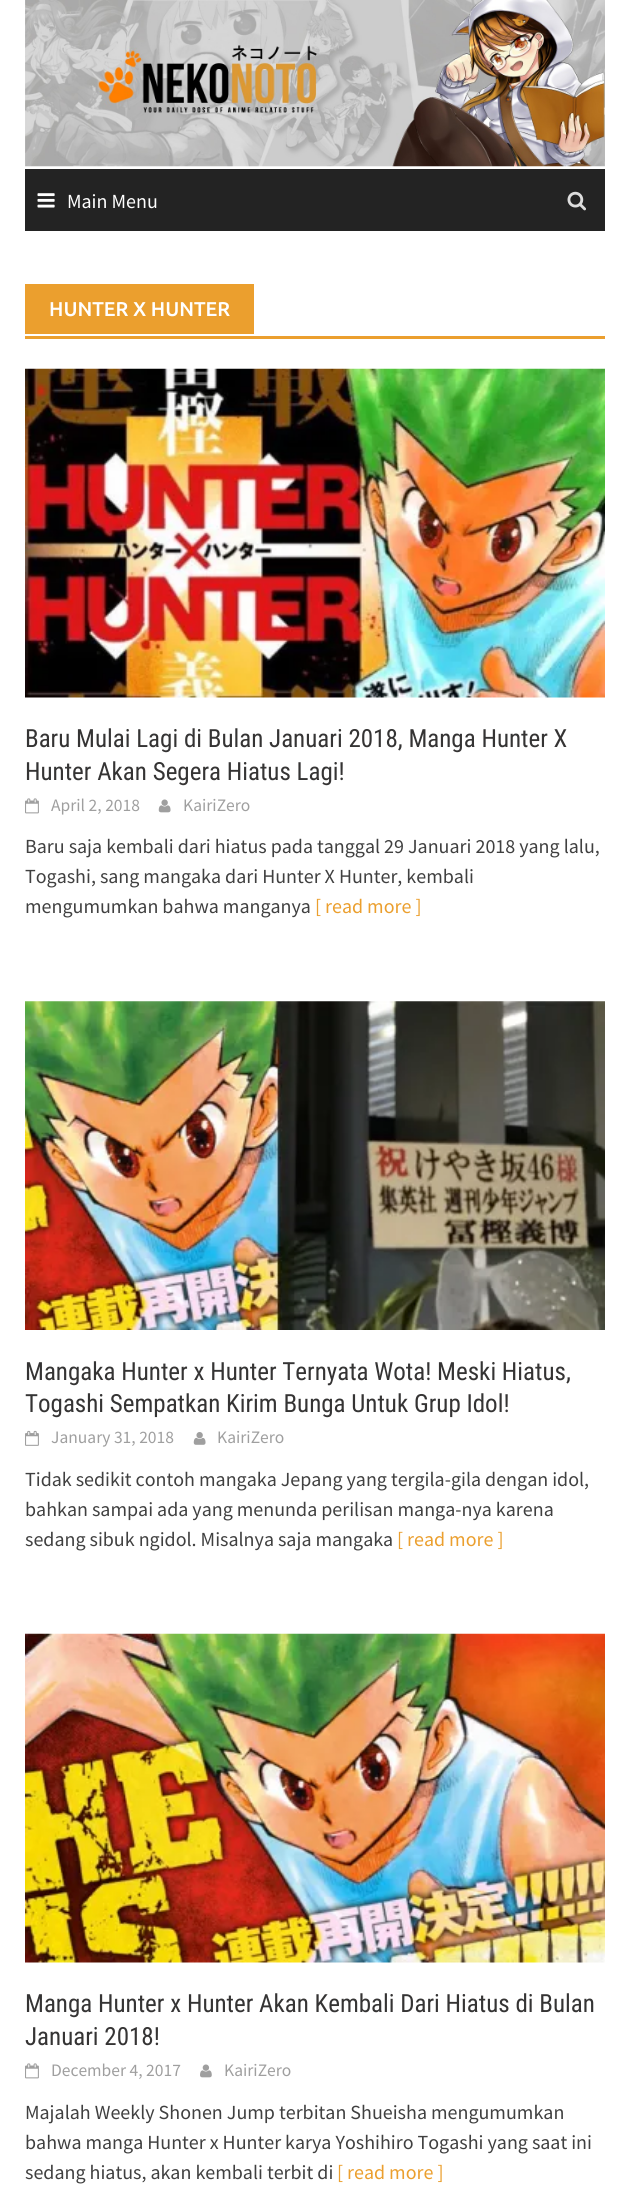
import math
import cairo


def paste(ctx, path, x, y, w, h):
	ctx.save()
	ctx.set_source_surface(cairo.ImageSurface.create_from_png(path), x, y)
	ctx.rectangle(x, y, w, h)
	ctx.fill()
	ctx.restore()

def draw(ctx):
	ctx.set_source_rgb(1, 1, 1)
	ctx.paint()
	paste(ctx, 'media/1.png', 25, 0, 580, 167)
	ctx.set_source_rgb(0.137, 0.137, 0.137)
	ctx.rectangle(25, 169, 580, 62)
	ctx.fill()
	paste(ctx, 'media/2.png', 37, 193, 18, 15)
	ctx.select_font_face('Source Sans Pro')
	ctx.set_font_size(20)
	ctx.set_source_rgb(1, 1, 1)
	ctx.move_to(67, 208)
	ctx.show_text('Main Menu')
	paste(ctx, 'media/3.png', 567, 191, 19, 20)
	ctx.set_source_rgb(0.918, 0.624, 0.18)
	ctx.rectangle(25, 336, 580, 3)
	ctx.fill()
	ctx.rectangle(25, 284, 229, 50)
	ctx.fill()
	ctx.select_font_face('Ubuntu Medium')
	ctx.set_source_rgb(1, 1, 1)
	ctx.move_to(49, 316)
	ctx.show_text('HUNTER X HUNTER')
	paste(ctx, 'media/4.png', 25, 368, 580, 330)
	ctx.select_font_face('Roboto Condensed')
	ctx.set_font_size(25)
	ctx.set_source_rgb(0.208, 0.204, 0.204)
	ctx.move_to(25, 747)
	ctx.show_text('Baru Mulai Lagi di Bulan Januari 2018, Manga Hunter X')
	ctx.move_to(25, 780)
	ctx.show_text('Hunter Akan Segera Hiatus Lagi!')
	paste(ctx, 'media/5.png', 25, 798, 14, 16)
	ctx.select_font_face('Source Sans Pro')
	ctx.set_font_size(17.5)
	ctx.set_source_rgb(0.624, 0.624, 0.624)
	ctx.move_to(51, 811)
	ctx.show_text('April 2, 2018')
	paste(ctx, 'media/6.png', 158, 799, 13, 14)
	ctx.move_to(183, 811)
	ctx.show_text('KairiZero')
	ctx.set_font_size(20)
	ctx.set_source_rgb(0.251, 0.251, 0.251)
	for x, y, s in [
		(25, 853, 'Baru saja kembali dari hiatus pada tanggal 29 Januari 2018 yang lalu,'),
		(25, 883, 'Togashi, sang mangaka dari Hunter X Hunter, kembali'),
		(25, 913, 'mengumumkan bahwa manganya'),
	]:
		ctx.move_to(x, y)
		ctx.show_text(s)
	ctx.set_source_rgb(0.918, 0.624, 0.18)
	ctx.move_to(315, 913)
	ctx.show_text('[ read more ]')
	paste(ctx, 'media/7.png', 25, 1001, 580, 329)
	ctx.select_font_face('Roboto Condensed')
	ctx.set_font_size(25)
	ctx.set_source_rgb(0.208, 0.204, 0.204)
	ctx.move_to(25, 1380)
	ctx.show_text('Mangaka Hunter x Hunter Ternyata Wota! Meski Hiatus,')
	ctx.move_to(25, 1412)
	ctx.show_text('Togashi Sempatkan Kirim Bunga Untuk Grup Idol!')
	paste(ctx, 'media/8.png', 25, 1430, 14, 16)
	ctx.select_font_face('Source Sans Pro')
	ctx.set_font_size(17.5)
	ctx.set_source_rgb(0.624, 0.624, 0.624)
	ctx.move_to(51, 1443)
	ctx.show_text('January 31, 2018')
	paste(ctx, 'media/9.png', 193, 1432, 13, 13)
	ctx.move_to(217, 1443)
	ctx.show_text('KairiZero')
	ctx.set_font_size(20)
	ctx.set_source_rgb(0.251, 0.251, 0.251)
	for x, y, s in [
		(25, 1486, 'Tidak sedikit contoh mangaka Jepang yang tergila-gila dengan idol,'),
		(25, 1516, 'bahkan sampai ada yang menunda perilisan manga-nya karena'),
		(25, 1546, 'sedang sibuk ngidol. Misalnya saja mangaka'),
	]:
		ctx.move_to(x, y)
		ctx.show_text(s)
	ctx.set_source_rgb(0.918, 0.624, 0.18)
	ctx.move_to(397, 1546)
	ctx.show_text('[ read more ]')
	paste(ctx, 'media/10.png', 25, 1633, 580, 330)
	ctx.select_font_face('Roboto Condensed')
	ctx.set_font_size(25)
	ctx.set_source_rgb(0.208, 0.204, 0.204)
	ctx.move_to(25, 2012)
	ctx.show_text('Manga Hunter x Hunter Akan Kembali Dari Hiatus di Bulan')
	ctx.move_to(25, 2045)
	ctx.show_text('Januari 2018!')
	paste(ctx, 'media/5.png', 25, 2063, 14, 16)
	ctx.select_font_face('Source Sans Pro')
	ctx.set_font_size(17.5)
	ctx.set_source_rgb(0.624, 0.624, 0.624)
	ctx.move_to(51, 2076)
	ctx.show_text('December 4, 2017')
	paste(ctx, 'media/11.png', 200, 2064, 12, 14)
	ctx.move_to(224, 2076)
	ctx.show_text('KairiZero')
	ctx.set_font_size(20)
	ctx.set_source_rgb(0.251, 0.251, 0.251)
	for x, y, s in [
		(25, 2119, 'Majalah Weekly Shonen Jump terbitan Shueisha mengumumkan'),
		(25, 2149, 'bahwa manga Hunter x Hunter karya Yoshihiro Togashi yang saat ini'),
		(25, 2179, 'sedang hiatus, akan kembali terbit di'),
	]:
		ctx.move_to(x, y)
		ctx.show_text(s)
	ctx.set_source_rgb(0.918, 0.624, 0.18)
	ctx.move_to(337, 2179)
	ctx.show_text('[ read more ]')


surface = cairo.ImageSurface(cairo.FORMAT_RGB24, 630, 2203)
ctx = cairo.Context(surface)
options = cairo.FontOptions()
options.set_hint_metrics(cairo.HINT_METRICS_OFF)
options.set_hint_style(cairo.HINT_STYLE_NONE)
ctx.set_font_options(options)
ctx.set_miter_limit(4)
draw(ctx)
surface.write_to_png('image.png')
